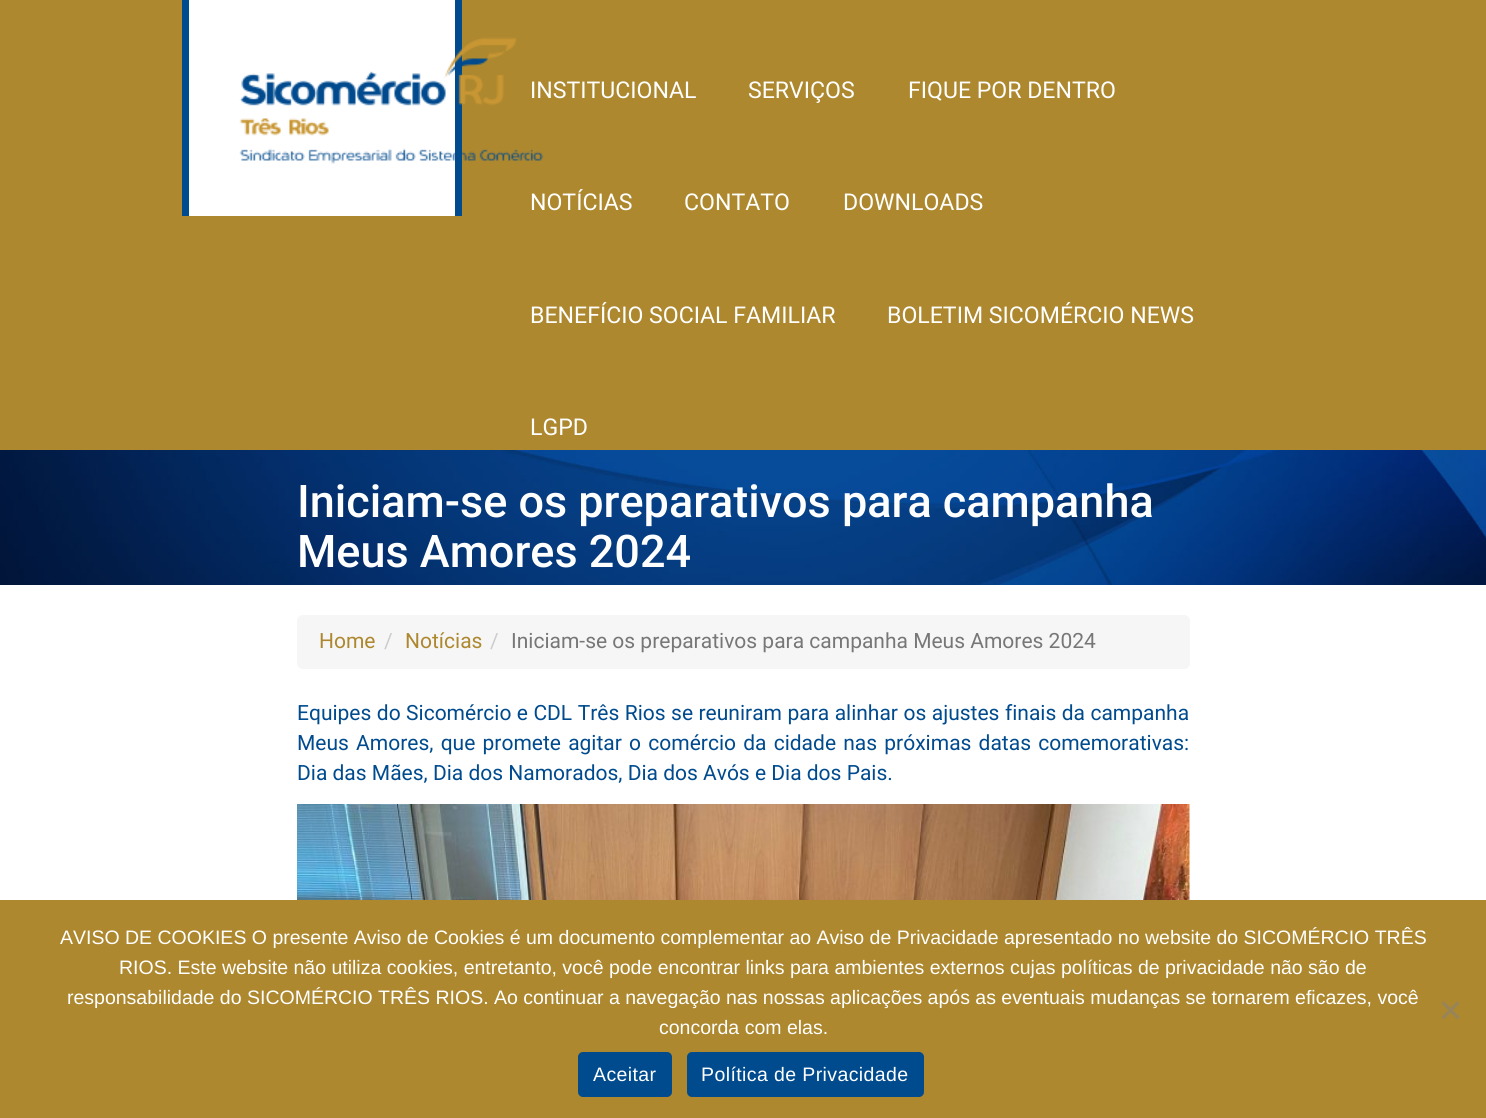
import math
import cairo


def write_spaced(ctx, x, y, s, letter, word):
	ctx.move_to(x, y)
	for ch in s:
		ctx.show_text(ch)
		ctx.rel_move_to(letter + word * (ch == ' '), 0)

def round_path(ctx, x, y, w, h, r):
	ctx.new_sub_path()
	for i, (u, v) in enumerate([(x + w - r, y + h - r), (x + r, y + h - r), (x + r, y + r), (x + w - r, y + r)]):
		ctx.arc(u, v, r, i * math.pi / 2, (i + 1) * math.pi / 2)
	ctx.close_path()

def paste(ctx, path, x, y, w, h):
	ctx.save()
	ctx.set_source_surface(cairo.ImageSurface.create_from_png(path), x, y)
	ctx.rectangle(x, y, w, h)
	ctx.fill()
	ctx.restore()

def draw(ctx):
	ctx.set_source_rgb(1, 1, 1)
	ctx.paint()
	ctx.set_source_rgb(0.678, 0.533, 0.184)
	ctx.rectangle(0, 0, 1486, 450)
	ctx.fill()
	ctx.set_source_rgb(1, 1, 1)
	ctx.rectangle(189, 0, 266, 216)
	ctx.fill()
	ctx.set_source_rgb(0, 0.294, 0.557)
	ctx.rectangle(455, 0, 7, 216)
	ctx.rectangle(182, 0, 7, 216)
	ctx.fill()
	paste(ctx, 'media/1.png', 239, 37, 305, 127)
	ctx.select_font_face('Roboto')
	ctx.set_font_size(23.1)
	ctx.set_source_rgb(1, 1, 1)
	for x, y, s in [
		(530, 98, 'INSTITUCIONAL'),
		(748, 98, 'SERVIÇOS'),
		(908, 98, 'FIQUE POR DENTRO'),
		(530, 210, 'NOTÍCIAS'),
		(684, 210, 'CONTATO'),
		(843, 210, 'DOWNLOADS'),
		(530, 323, 'BENEFÍCIO SOCIAL FAMILIAR'),
		(887, 323, 'BOLETIM SICOMÉRCIO NEWS'),
		(530, 435, 'LGPD'),
	]:
		ctx.move_to(x, y)
		ctx.show_text(s)
	paste(ctx, 'media/2.png', 0, 450, 1486, 135)
	ctx.select_font_face('Roboto Medium')
	ctx.set_font_size(45)
	ctx.move_to(297, 517)
	ctx.show_text('Iniciam-se os preparativos para campanha')
	ctx.move_to(297, 567)
	ctx.show_text('Meus Amores 2024')
	ctx.set_source_rgb(0.961, 0.961, 0.961)
	round_path(ctx, 297, 615, 893, 54, 6)
	ctx.fill()
	ctx.select_font_face('Roboto')
	ctx.set_font_size(21)
	ctx.set_source_rgb(0.678, 0.533, 0.184)
	ctx.move_to(319, 648)
	ctx.show_text('Home')
	ctx.set_source_rgb(0.8, 0.8, 0.8)
	ctx.move_to(384, 648)
	ctx.show_text('/')
	ctx.set_source_rgb(0.678, 0.533, 0.184)
	ctx.move_to(405, 648)
	ctx.show_text('Notícias')
	ctx.set_source_rgb(0.8, 0.8, 0.8)
	ctx.move_to(490, 648)
	ctx.show_text('/')
	ctx.set_source_rgb(0.467, 0.467, 0.467)
	ctx.move_to(511, 648)
	ctx.show_text('Iniciam-se os preparativos para campanha Meus Amores 2024')
	ctx.set_source_rgb(0, 0.294, 0.557)
	write_spaced(ctx, 297, 720, 'Equipes do Sicomércio e CDL Três Rios se reuniram para alinhar os ajustes finais da campanha', 0, 0.25)
	write_spaced(ctx, 297, 750, 'Meus Amores, que promete agitar o comércio da cidade nas próximas datas comemorativas:', 0, 2)
	ctx.move_to(297, 780)
	ctx.show_text('Dia das Mães, Dia dos Namorados, Dia dos Avós e Dia dos Pais.')
	paste(ctx, 'media/3.png', 297, 804, 893, 96)
	ctx.set_source_rgb(0.678, 0.533, 0.184)
	ctx.rectangle(0, 900, 1486, 218)
	ctx.fill()
	ctx.select_font_face('Liberation Sans')
	ctx.set_font_size(19.5)
	ctx.set_source_rgb(1, 1, 1)
	for x, y, s in [
		(60, 944, 'AVISO DE COOKIES O presente Aviso de Cookies é um documento complementar ao Aviso de Privacidade apresentado no website do SICOMÉRCIO TRÊS'),
		(119, 974, 'RIOS. Este website não utiliza cookies, entretanto, você pode encontrar links para ambientes externos cujas políticas de privacidade não são de'),
		(67, 1004, 'responsabilidade do SICOMÉRCIO TRÊS RIOS. Ao continuar a navegação nas nossas aplicações após as eventuais mudanças se tornarem eficazes, você'),
		(659, 1034, 'concorda com elas.'),
	]:
		ctx.move_to(x, y)
		ctx.show_text(s)
	ctx.set_source_rgb(0.592, 0.518, 0.345)
	ctx.new_path()
	ctx.move_to(1457.5, 1001)
	ctx.line_to(1459.5, 1003.5)
	ctx.line_to(1443.5, 1019.5)
	ctx.line_to(1441.5, 1017)
	ctx.close_path()
	ctx.fill()
	ctx.new_path()
	ctx.move_to(1441.5, 1003.5)
	ctx.line_to(1443.5, 1001)
	ctx.line_to(1459.5, 1017)
	ctx.line_to(1457.5, 1019.5)
	ctx.close_path()
	ctx.fill()
	ctx.set_source_rgb(0, 0.294, 0.557)
	round_path(ctx, 578, 1052, 94, 45, 5)
	ctx.fill()
	ctx.set_source_rgb(1, 1, 1)
	write_spaced(ctx, 593, 1081, 'Aceitar', 0.4, 0)
	ctx.set_source_rgb(0, 0.294, 0.557)
	round_path(ctx, 687, 1052, 237, 45, 5)
	ctx.fill()
	ctx.set_source_rgb(1, 1, 1)
	write_spaced(ctx, 701, 1081, 'Política de Privacidade', 0.4, 0)


surface = cairo.ImageSurface(cairo.FORMAT_RGB24, 1486, 1118)
ctx = cairo.Context(surface)
options = cairo.FontOptions()
options.set_hint_metrics(cairo.HINT_METRICS_OFF)
options.set_hint_style(cairo.HINT_STYLE_NONE)
ctx.set_font_options(options)
ctx.set_miter_limit(4)
draw(ctx)
surface.write_to_png('image.png')
